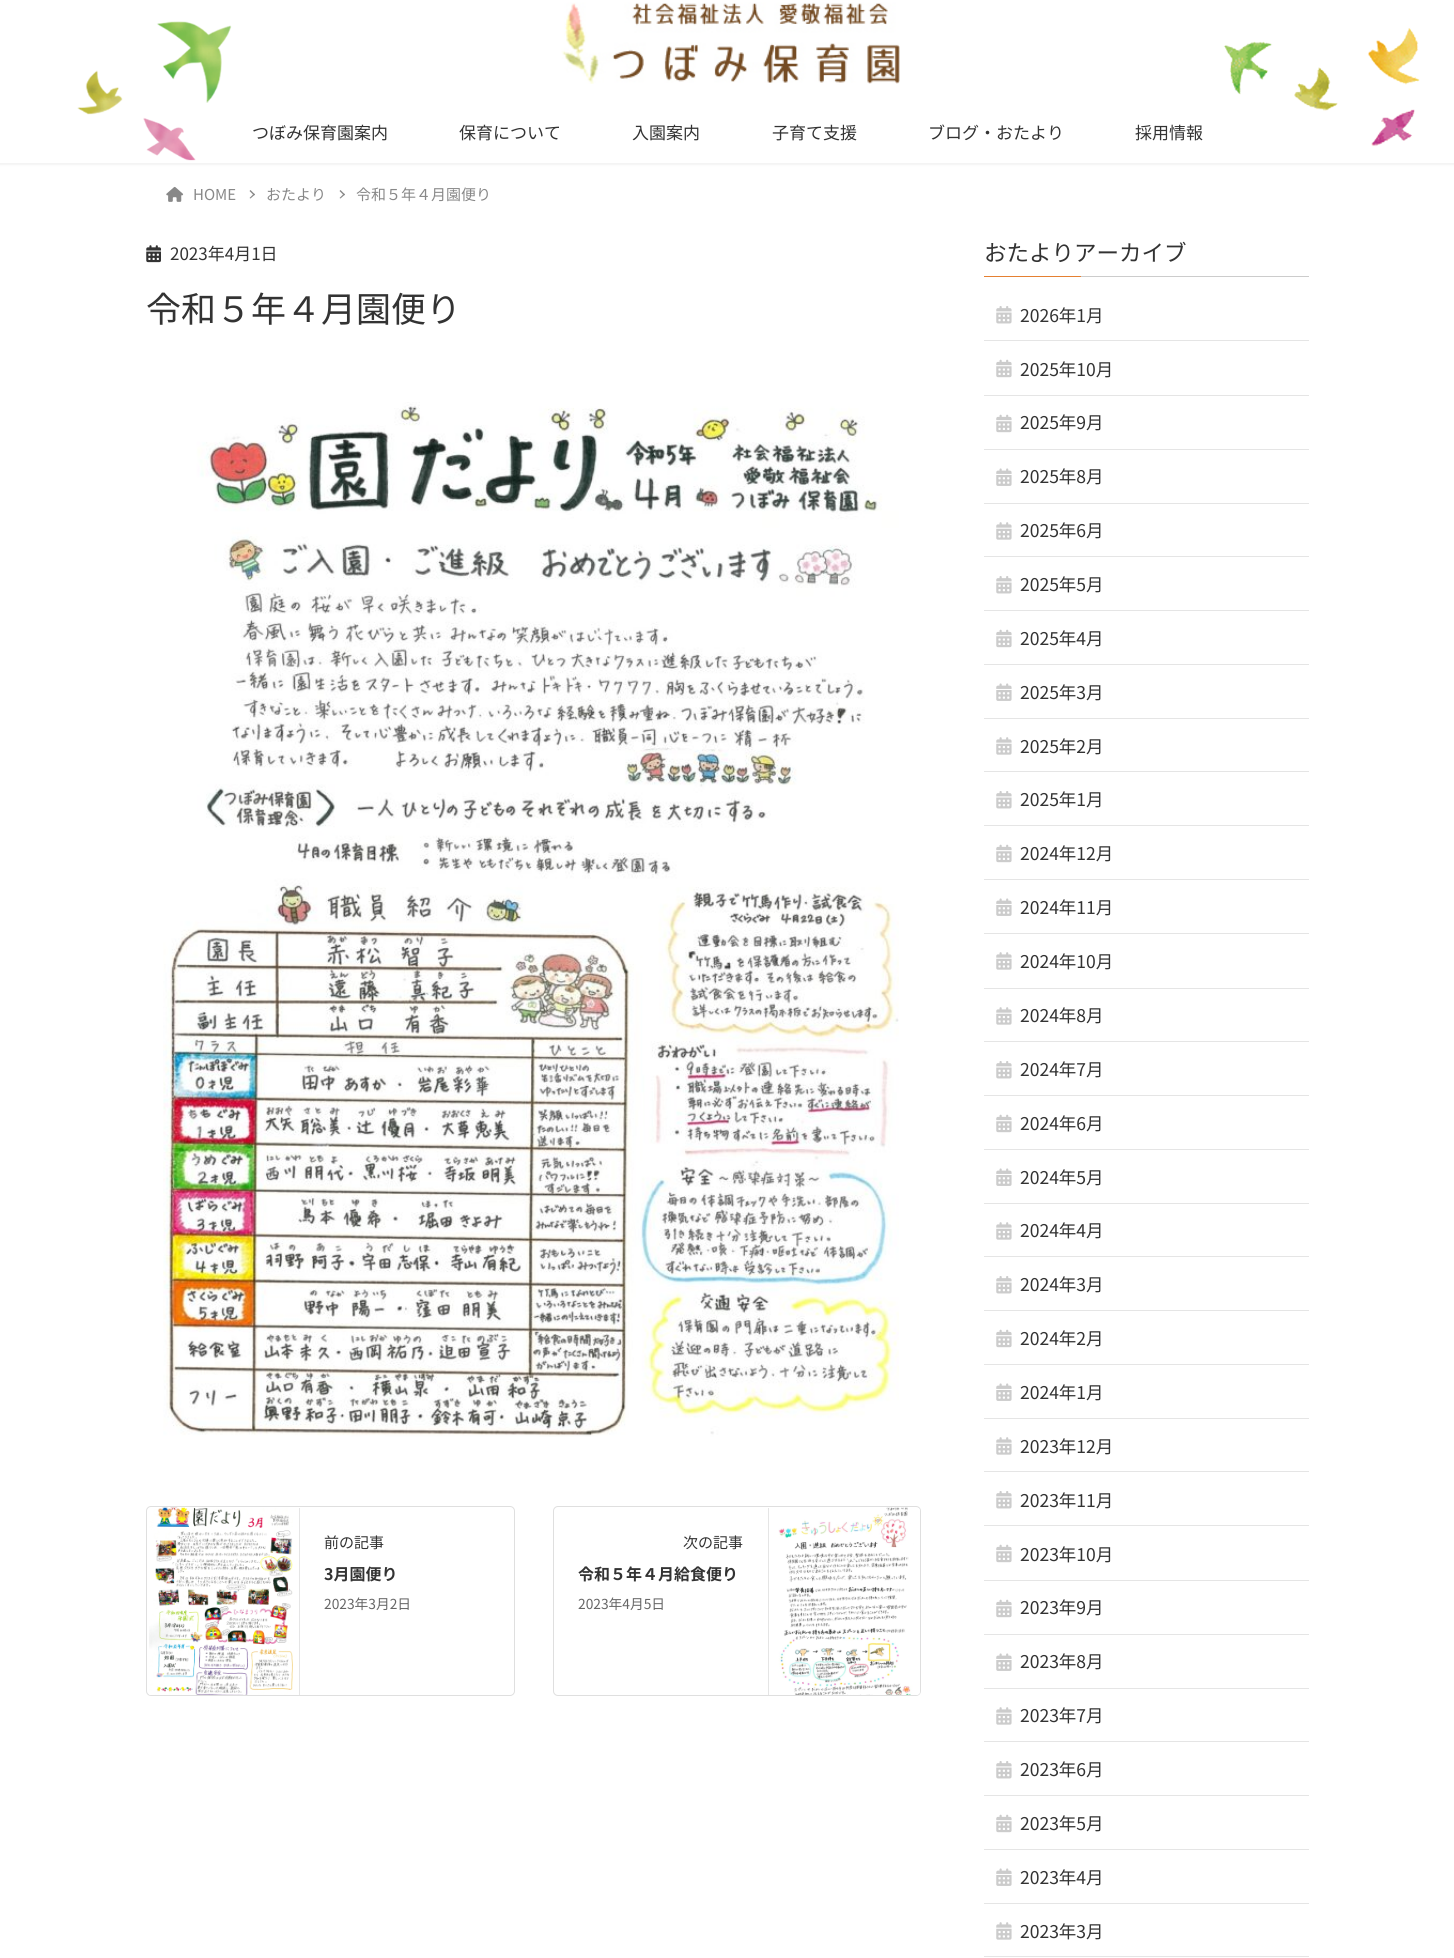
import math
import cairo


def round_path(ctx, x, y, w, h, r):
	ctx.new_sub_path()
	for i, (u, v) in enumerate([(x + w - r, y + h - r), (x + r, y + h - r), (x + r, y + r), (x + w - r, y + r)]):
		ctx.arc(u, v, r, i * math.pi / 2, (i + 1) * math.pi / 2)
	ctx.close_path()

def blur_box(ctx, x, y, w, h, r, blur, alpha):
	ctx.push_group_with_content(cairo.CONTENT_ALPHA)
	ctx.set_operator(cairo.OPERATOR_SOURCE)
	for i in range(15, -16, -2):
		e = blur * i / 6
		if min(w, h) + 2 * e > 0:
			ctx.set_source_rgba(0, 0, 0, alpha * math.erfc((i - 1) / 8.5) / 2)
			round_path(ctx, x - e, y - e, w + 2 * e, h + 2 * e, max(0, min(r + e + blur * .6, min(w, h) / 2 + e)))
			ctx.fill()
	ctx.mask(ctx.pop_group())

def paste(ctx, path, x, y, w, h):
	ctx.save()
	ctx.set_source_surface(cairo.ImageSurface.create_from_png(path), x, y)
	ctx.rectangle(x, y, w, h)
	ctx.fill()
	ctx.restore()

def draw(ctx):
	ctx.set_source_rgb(1, 1, 1)
	ctx.paint()
	ctx.set_source_rgb(0, 0, 0)
	blur_box(ctx, -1, 0, 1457, 165, 0, 1, 0.05)
	ctx.set_source_rgb(1, 1, 1)
	ctx.rectangle(0, 0, 1454, 163)
	ctx.fill()
	paste(ctx, 'media/1.png', 77, 21, 1343, 140)
	paste(ctx, 'media/2.png', 561, 2, 339, 82)
	ctx.select_font_face('Noto Sans JP')
	ctx.set_font_size(17)
	ctx.set_source_rgb(0.2, 0.2, 0.2)
	for x, y, s in [
		(252, 139, 'つぼみ保育園案内'),
		(459, 139, '保育について'),
		(632, 139, '入園案内'),
		(772, 139, '子育て支援'),
		(928, 139, 'ブログ・おたより'),
		(1135, 139, '採用情報'),
	]:
		ctx.move_to(x, y)
		ctx.show_text(s)
	paste(ctx, 'media/3.png', 166, 186, 18, 16)
	ctx.set_font_size(15)
	ctx.set_source_rgb(0.533, 0.533, 0.533)
	ctx.move_to(193, 200)
	ctx.show_text('HOME')
	ctx.new_path()
	ctx.move_to(250.5, 190)
	ctx.line_to(255, 194.5)
	ctx.line_to(254, 195.5)
	ctx.line_to(249.5, 191)
	ctx.close_path()
	ctx.fill()
	ctx.new_path()
	ctx.move_to(254, 193.5)
	ctx.line_to(255, 194.5)
	ctx.line_to(250.5, 198.5)
	ctx.line_to(249.5, 198)
	ctx.close_path()
	ctx.fill()
	ctx.move_to(266, 200)
	ctx.show_text('おたより')
	ctx.new_path()
	ctx.move_to(340.5, 190)
	ctx.line_to(345, 194.5)
	ctx.line_to(344, 195.5)
	ctx.line_to(339.5, 191)
	ctx.close_path()
	ctx.fill()
	ctx.new_path()
	ctx.move_to(344, 193.5)
	ctx.line_to(345, 194.5)
	ctx.line_to(340.5, 198.5)
	ctx.line_to(339.5, 198)
	ctx.close_path()
	ctx.fill()
	ctx.move_to(356, 200)
	ctx.show_text('令和５年４月園便り')
	paste(ctx, 'media/4.png', 146, 245, 15, 18)
	ctx.set_font_size(17)
	ctx.set_source_rgb(0.2, 0.2, 0.2)
	ctx.move_to(170, 260)
	ctx.show_text('2023年4月1日')
	ctx.set_font_size(35)
	ctx.move_to(146, 322)
	ctx.show_text('令和５年４月園便り')
	paste(ctx, 'media/5.png', 163, 402, 736, 1035)
	round_path(ctx, 146.5, 1506.5, 368, 189, 4.5)
	ctx.set_source_rgb(0.875, 0.875, 0.875)
	ctx.set_line_width(1)
	ctx.stroke()
	paste(ctx, 'media/6.png', 149, 1507, 144, 188)
	ctx.set_source_rgb(0.898, 0.898, 0.898)
	ctx.rectangle(299, 1508, 1, 187)
	ctx.fill()
	ctx.set_font_size(15)
	ctx.set_source_rgb(0.2, 0.2, 0.2)
	ctx.move_to(324, 1548)
	ctx.show_text('前の記事')
	ctx.select_font_face('Noto Sans JP', cairo.FONT_SLANT_NORMAL, cairo.FONT_WEIGHT_BOLD)
	ctx.set_font_size(16)
	ctx.move_to(324, 1580)
	ctx.show_text('3月園便り')
	ctx.select_font_face('Noto Sans JP')
	ctx.set_font_size(13.75)
	ctx.set_source_rgb(0.4, 0.4, 0.4)
	ctx.move_to(324, 1609)
	ctx.show_text('2023年3月2日')
	round_path(ctx, 553.5, 1506.5, 367, 189, 4.5)
	ctx.set_source_rgb(0.875, 0.875, 0.875)
	ctx.stroke()
	ctx.set_font_size(15)
	ctx.set_source_rgb(0.2, 0.2, 0.2)
	ctx.move_to(683, 1548)
	ctx.show_text('次の記事')
	ctx.select_font_face('Noto Sans JP', cairo.FONT_SLANT_NORMAL, cairo.FONT_WEIGHT_BOLD)
	ctx.set_font_size(16)
	ctx.move_to(578, 1580)
	ctx.show_text('令和５年４月給食便り')
	ctx.select_font_face('Noto Sans JP')
	ctx.set_font_size(13.75)
	ctx.set_source_rgb(0.4, 0.4, 0.4)
	ctx.move_to(578, 1609)
	ctx.show_text('2023年4月5日')
	paste(ctx, 'media/7.png', 778, 1507, 142, 188)
	ctx.set_source_rgb(0.898, 0.898, 0.898)
	ctx.rectangle(768, 1508, 1, 187)
	ctx.fill()
	ctx.set_source_rgb(0.8, 0.8, 0.8)
	ctx.rectangle(1081, 276, 228, 1)
	ctx.fill()
	ctx.set_font_size(22.5)
	ctx.set_source_rgb(0.2, 0.2, 0.2)
	ctx.move_to(984, 261)
	ctx.show_text('おたよりアーカイブ')
	ctx.set_source_rgb(0.898, 0.502, 0.196)
	ctx.rectangle(984, 276, 97, 1)
	ctx.fill()
	ctx.set_source_rgb(0.898, 0.898, 0.898)
	ctx.rectangle(984, 340, 325, 1)
	ctx.fill()
	paste(ctx, 'media/8.png', 996, 306, 16, 18)
	ctx.set_font_size(17.5)
	ctx.set_source_rgb(0.2, 0.2, 0.2)
	ctx.move_to(1020, 322)
	ctx.show_text('2026年1月')
	ctx.set_source_rgb(0.898, 0.898, 0.898)
	ctx.rectangle(984, 395, 325, 1)
	ctx.fill()
	paste(ctx, 'media/9.png', 996, 359, 16, 19)
	ctx.set_source_rgb(0.2, 0.2, 0.2)
	ctx.move_to(1020, 376)
	ctx.show_text('2025年10月')
	ctx.set_source_rgb(0.898, 0.898, 0.898)
	ctx.rectangle(984, 449, 325, 1)
	ctx.fill()
	paste(ctx, 'media/9.png', 996, 414, 16, 19)
	ctx.set_source_rgb(0.2, 0.2, 0.2)
	ctx.move_to(1020, 429)
	ctx.show_text('2025年9月')
	ctx.set_source_rgb(0.898, 0.898, 0.898)
	ctx.rectangle(984, 503, 325, 1)
	ctx.fill()
	paste(ctx, 'media/10.png', 996, 468, 16, 18)
	ctx.set_source_rgb(0.2, 0.2, 0.2)
	ctx.move_to(1020, 483)
	ctx.show_text('2025年8月')
	ctx.set_source_rgb(0.898, 0.898, 0.898)
	ctx.rectangle(984, 556, 325, 1)
	ctx.fill()
	paste(ctx, 'media/11.png', 996, 522, 16, 18)
	ctx.set_source_rgb(0.2, 0.2, 0.2)
	ctx.move_to(1020, 537)
	ctx.show_text('2025年6月')
	ctx.set_source_rgb(0.898, 0.898, 0.898)
	ctx.rectangle(984, 610, 325, 1)
	ctx.fill()
	paste(ctx, 'media/8.png', 996, 576, 16, 18)
	ctx.set_source_rgb(0.2, 0.2, 0.2)
	ctx.move_to(1020, 591)
	ctx.show_text('2025年5月')
	ctx.set_source_rgb(0.898, 0.898, 0.898)
	ctx.rectangle(984, 664, 325, 1)
	ctx.fill()
	paste(ctx, 'media/9.png', 996, 629, 16, 19)
	ctx.set_source_rgb(0.2, 0.2, 0.2)
	ctx.move_to(1020, 645)
	ctx.show_text('2025年4月')
	ctx.set_source_rgb(0.898, 0.898, 0.898)
	ctx.rectangle(984, 718, 325, 1)
	ctx.fill()
	paste(ctx, 'media/10.png', 996, 683, 16, 18)
	ctx.set_source_rgb(0.2, 0.2, 0.2)
	ctx.move_to(1020, 699)
	ctx.show_text('2025年3月')
	ctx.set_source_rgb(0.898, 0.898, 0.898)
	ctx.rectangle(984, 771, 325, 1)
	ctx.fill()
	paste(ctx, 'media/11.png', 996, 737, 16, 18)
	ctx.set_source_rgb(0.2, 0.2, 0.2)
	ctx.move_to(1020, 753)
	ctx.show_text('2025年2月')
	ctx.set_source_rgb(0.898, 0.898, 0.898)
	ctx.rectangle(984, 825, 325, 1)
	ctx.fill()
	paste(ctx, 'media/8.png', 996, 791, 16, 18)
	ctx.set_source_rgb(0.2, 0.2, 0.2)
	ctx.move_to(1020, 806)
	ctx.show_text('2025年1月')
	ctx.set_source_rgb(0.898, 0.898, 0.898)
	ctx.rectangle(984, 879, 325, 1)
	ctx.fill()
	paste(ctx, 'media/9.png', 996, 844, 16, 19)
	ctx.set_source_rgb(0.2, 0.2, 0.2)
	ctx.move_to(1020, 860)
	ctx.show_text('2024年12月')
	ctx.set_source_rgb(0.898, 0.898, 0.898)
	ctx.rectangle(984, 933, 325, 1)
	ctx.fill()
	paste(ctx, 'media/10.png', 996, 898, 16, 18)
	ctx.set_source_rgb(0.2, 0.2, 0.2)
	ctx.move_to(1020, 914)
	ctx.show_text('2024年11月')
	ctx.set_source_rgb(0.898, 0.898, 0.898)
	ctx.rectangle(984, 988, 325, 1)
	ctx.fill()
	paste(ctx, 'media/11.png', 996, 952, 16, 18)
	ctx.set_source_rgb(0.2, 0.2, 0.2)
	ctx.move_to(1020, 968)
	ctx.show_text('2024年10月')
	ctx.set_source_rgb(0.898, 0.898, 0.898)
	ctx.rectangle(984, 1041, 325, 1)
	ctx.fill()
	paste(ctx, 'media/11.png', 996, 1007, 16, 18)
	ctx.set_source_rgb(0.2, 0.2, 0.2)
	ctx.move_to(1020, 1022)
	ctx.show_text('2024年8月')
	ctx.set_source_rgb(0.898, 0.898, 0.898)
	ctx.rectangle(984, 1095, 325, 1)
	ctx.fill()
	paste(ctx, 'media/8.png', 996, 1061, 16, 18)
	ctx.set_source_rgb(0.2, 0.2, 0.2)
	ctx.move_to(1020, 1076)
	ctx.show_text('2024年7月')
	ctx.set_source_rgb(0.898, 0.898, 0.898)
	ctx.rectangle(984, 1149, 325, 1)
	ctx.fill()
	paste(ctx, 'media/9.png', 996, 1114, 16, 19)
	ctx.set_source_rgb(0.2, 0.2, 0.2)
	ctx.move_to(1020, 1130)
	ctx.show_text('2024年6月')
	ctx.set_source_rgb(0.898, 0.898, 0.898)
	ctx.rectangle(984, 1203, 325, 1)
	ctx.fill()
	paste(ctx, 'media/10.png', 996, 1168, 16, 18)
	ctx.set_source_rgb(0.2, 0.2, 0.2)
	ctx.move_to(1020, 1184)
	ctx.show_text('2024年5月')
	ctx.set_source_rgb(0.898, 0.898, 0.898)
	ctx.rectangle(984, 1256, 325, 1)
	ctx.fill()
	paste(ctx, 'media/11.png', 996, 1222, 16, 18)
	ctx.set_source_rgb(0.2, 0.2, 0.2)
	ctx.move_to(1020, 1237)
	ctx.show_text('2024年4月')
	ctx.set_source_rgb(0.898, 0.898, 0.898)
	ctx.rectangle(984, 1310, 325, 1)
	ctx.fill()
	paste(ctx, 'media/8.png', 996, 1276, 16, 18)
	ctx.set_source_rgb(0.2, 0.2, 0.2)
	ctx.move_to(1020, 1291)
	ctx.show_text('2024年3月')
	ctx.set_source_rgb(0.898, 0.898, 0.898)
	ctx.rectangle(984, 1364, 325, 1)
	ctx.fill()
	paste(ctx, 'media/9.png', 996, 1329, 16, 19)
	ctx.set_source_rgb(0.2, 0.2, 0.2)
	ctx.move_to(1020, 1345)
	ctx.show_text('2024年2月')
	ctx.set_source_rgb(0.898, 0.898, 0.898)
	ctx.rectangle(984, 1418, 325, 1)
	ctx.fill()
	paste(ctx, 'media/10.png', 996, 1383, 16, 18)
	ctx.set_source_rgb(0.2, 0.2, 0.2)
	ctx.move_to(1020, 1399)
	ctx.show_text('2024年1月')
	ctx.set_source_rgb(0.898, 0.898, 0.898)
	ctx.rectangle(984, 1471, 325, 1)
	ctx.fill()
	paste(ctx, 'media/11.png', 996, 1437, 16, 18)
	ctx.set_source_rgb(0.2, 0.2, 0.2)
	ctx.move_to(1020, 1453)
	ctx.show_text('2023年12月')
	ctx.set_source_rgb(0.898, 0.898, 0.898)
	ctx.rectangle(984, 1525, 325, 1)
	ctx.fill()
	paste(ctx, 'media/8.png', 996, 1491, 16, 18)
	ctx.set_source_rgb(0.2, 0.2, 0.2)
	ctx.move_to(1020, 1507)
	ctx.show_text('2023年11月')
	ctx.set_source_rgb(0.898, 0.898, 0.898)
	ctx.rectangle(984, 1580, 325, 1)
	ctx.fill()
	paste(ctx, 'media/9.png', 996, 1544, 16, 19)
	ctx.set_source_rgb(0.2, 0.2, 0.2)
	ctx.move_to(1020, 1561)
	ctx.show_text('2023年10月')
	ctx.set_source_rgb(0.898, 0.898, 0.898)
	ctx.rectangle(984, 1634, 325, 1)
	ctx.fill()
	paste(ctx, 'media/9.png', 996, 1599, 16, 19)
	ctx.set_source_rgb(0.2, 0.2, 0.2)
	ctx.move_to(1020, 1614)
	ctx.show_text('2023年9月')
	ctx.set_source_rgb(0.898, 0.898, 0.898)
	ctx.rectangle(984, 1688, 325, 1)
	ctx.fill()
	paste(ctx, 'media/10.png', 996, 1653, 16, 18)
	ctx.set_source_rgb(0.2, 0.2, 0.2)
	ctx.move_to(1020, 1668)
	ctx.show_text('2023年8月')
	ctx.set_source_rgb(0.898, 0.898, 0.898)
	ctx.rectangle(984, 1741, 325, 1)
	ctx.fill()
	paste(ctx, 'media/11.png', 996, 1707, 16, 18)
	ctx.set_source_rgb(0.2, 0.2, 0.2)
	ctx.move_to(1020, 1722)
	ctx.show_text('2023年7月')
	ctx.set_source_rgb(0.898, 0.898, 0.898)
	ctx.rectangle(984, 1795, 325, 1)
	ctx.fill()
	paste(ctx, 'media/8.png', 996, 1761, 16, 18)
	ctx.set_source_rgb(0.2, 0.2, 0.2)
	ctx.move_to(1020, 1776)
	ctx.show_text('2023年6月')
	ctx.set_source_rgb(0.898, 0.898, 0.898)
	ctx.rectangle(984, 1849, 325, 1)
	ctx.fill()
	paste(ctx, 'media/9.png', 996, 1814, 16, 19)
	ctx.set_source_rgb(0.2, 0.2, 0.2)
	ctx.move_to(1020, 1830)
	ctx.show_text('2023年5月')
	ctx.set_source_rgb(0.898, 0.898, 0.898)
	ctx.rectangle(984, 1903, 325, 1)
	ctx.fill()
	paste(ctx, 'media/10.png', 996, 1868, 16, 18)
	ctx.set_source_rgb(0.2, 0.2, 0.2)
	ctx.move_to(1020, 1884)
	ctx.show_text('2023年4月')
	ctx.set_source_rgb(0.898, 0.898, 0.898)
	ctx.rectangle(984, 1956, 325, 1)
	ctx.fill()
	paste(ctx, 'media/11.png', 996, 1922, 16, 18)
	ctx.set_source_rgb(0.2, 0.2, 0.2)
	ctx.move_to(1020, 1938)
	ctx.show_text('2023年3月')


surface = cairo.ImageSurface(cairo.FORMAT_RGB24, 1454, 1958)
ctx = cairo.Context(surface)
options = cairo.FontOptions()
options.set_hint_metrics(cairo.HINT_METRICS_OFF)
options.set_hint_style(cairo.HINT_STYLE_NONE)
ctx.set_font_options(options)
ctx.set_miter_limit(4)
draw(ctx)
surface.write_to_png('image.png')
